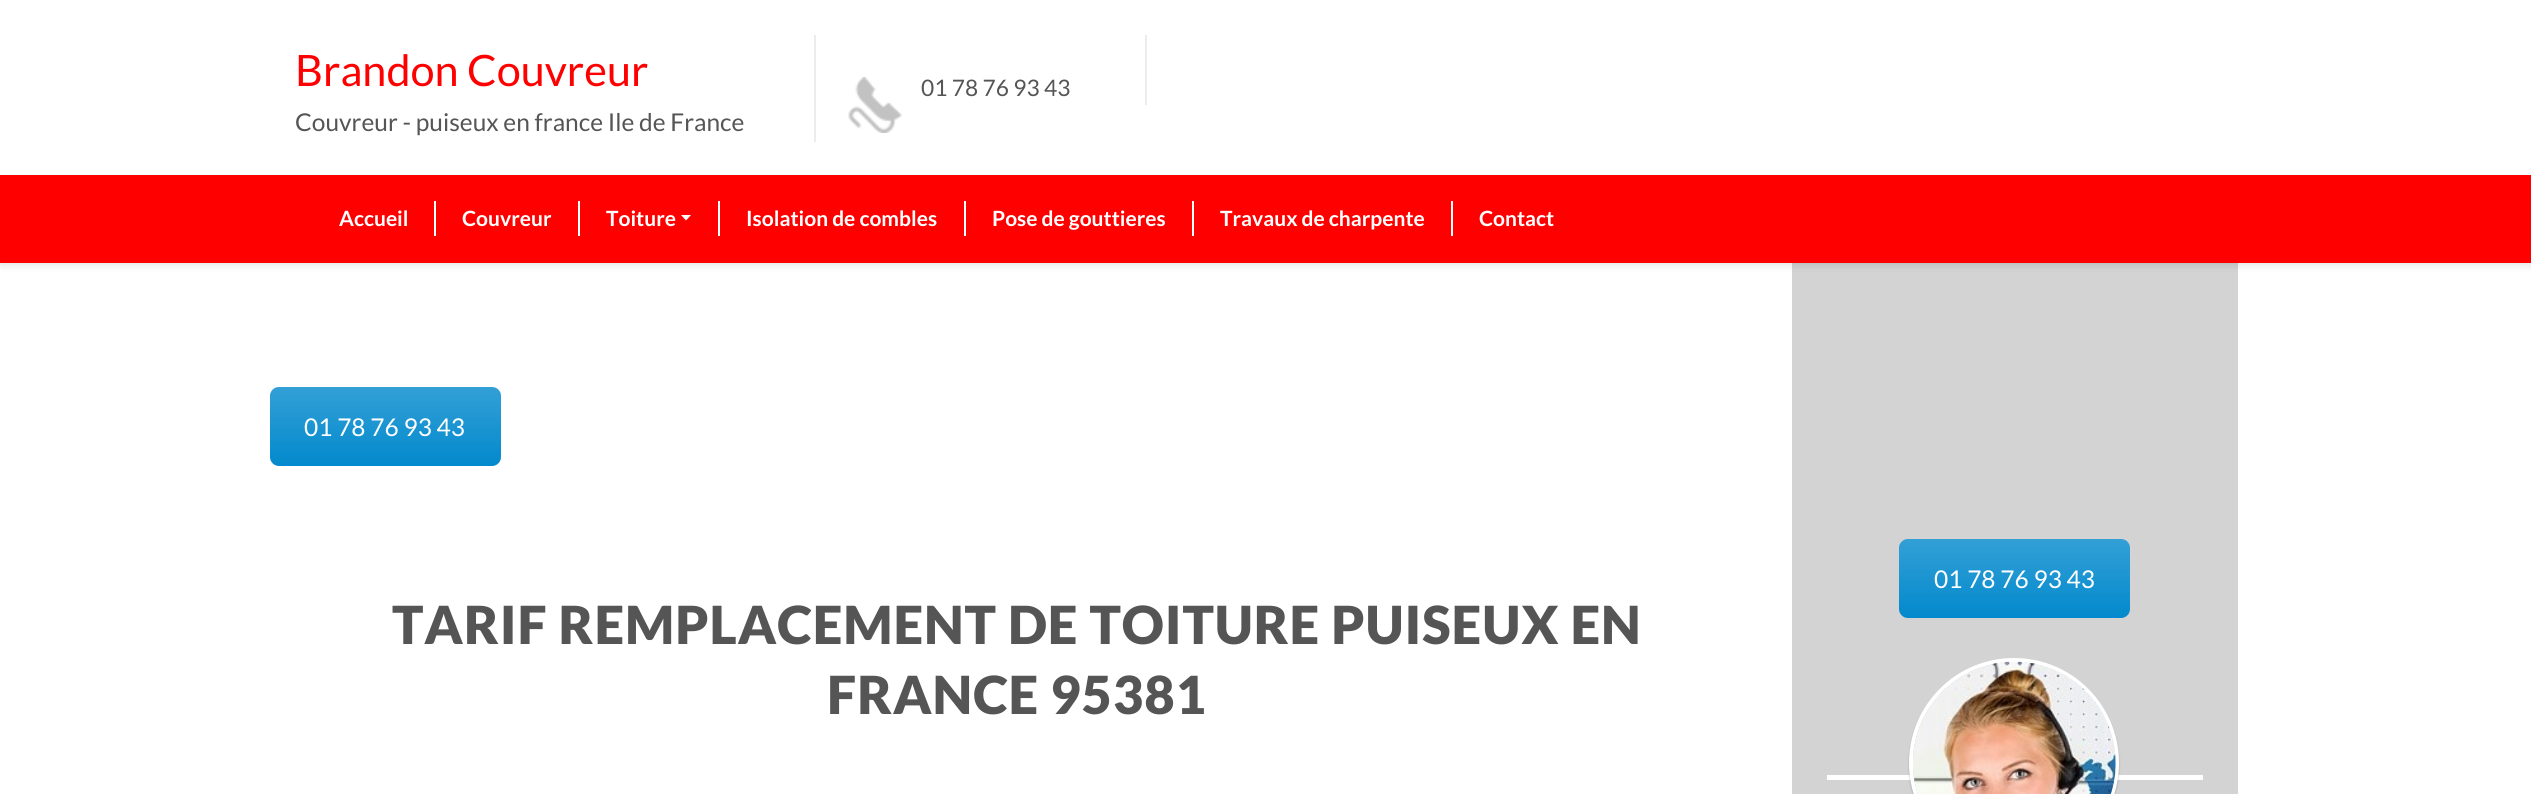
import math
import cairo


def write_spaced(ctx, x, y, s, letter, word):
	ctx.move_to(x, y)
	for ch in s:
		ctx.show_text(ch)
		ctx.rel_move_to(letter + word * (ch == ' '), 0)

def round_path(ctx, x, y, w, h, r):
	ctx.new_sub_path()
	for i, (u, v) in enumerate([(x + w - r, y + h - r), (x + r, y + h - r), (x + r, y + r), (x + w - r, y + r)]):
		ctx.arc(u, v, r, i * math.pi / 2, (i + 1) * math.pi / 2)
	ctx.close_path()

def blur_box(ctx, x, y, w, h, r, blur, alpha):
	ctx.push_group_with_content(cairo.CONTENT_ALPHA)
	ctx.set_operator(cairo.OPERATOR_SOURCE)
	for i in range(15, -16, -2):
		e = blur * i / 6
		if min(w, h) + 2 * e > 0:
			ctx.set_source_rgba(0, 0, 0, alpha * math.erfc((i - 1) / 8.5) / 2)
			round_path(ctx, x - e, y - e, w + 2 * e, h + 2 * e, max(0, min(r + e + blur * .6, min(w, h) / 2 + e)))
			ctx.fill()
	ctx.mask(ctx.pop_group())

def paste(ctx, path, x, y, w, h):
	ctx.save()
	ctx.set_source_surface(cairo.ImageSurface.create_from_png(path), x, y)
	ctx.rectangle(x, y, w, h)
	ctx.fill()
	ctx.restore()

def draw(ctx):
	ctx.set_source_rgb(1, 1, 1)
	ctx.paint()
	ctx.select_font_face('Lato')
	ctx.set_font_size(43.25)
	ctx.set_source_rgb(1, 0, 0)
	ctx.move_to(295, 86)
	ctx.show_text('Brandon Couvreur')
	ctx.set_font_size(24.5)
	ctx.set_source_rgb(0.333, 0.333, 0.333)
	ctx.move_to(295, 131)
	ctx.show_text('Couvreur - puiseux en france Ile de France')
	paste(ctx, 'media/1.png', 848, 77, 54, 56)
	ctx.set_source_rgb(0.922, 0.922, 0.922)
	ctx.rectangle(814, 35, 2, 107)
	ctx.fill()
	ctx.set_font_size(22.75)
	ctx.set_source_rgb(0.333, 0.333, 0.333)
	ctx.move_to(921, 96)
	ctx.show_text('01 78 76 93 43')
	ctx.set_source_rgb(0.922, 0.922, 0.922)
	ctx.rectangle(1145, 35, 2, 70)
	ctx.fill()
	ctx.set_source_rgb(0.827, 0.827, 0.827)
	ctx.rectangle(1792, 263, 446, 531)
	ctx.fill()
	ctx.set_source_rgb(0, 0, 0)
	blur_box(ctx, 0, 179, 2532, 87, 0, 3.5, 0.1)
	ctx.set_source_rgb(1, 0, 0)
	ctx.rectangle(0, 175, 2531, 88)
	ctx.fill()
	ctx.set_source_rgb(1, 1, 1)
	ctx.rectangle(434, 201, 2, 35)
	ctx.fill()
	ctx.select_font_face('Lato', cairo.FONT_SLANT_NORMAL, cairo.FONT_WEIGHT_BOLD)
	ctx.set_font_size(21)
	ctx.move_to(339, 226)
	ctx.show_text('Accueil')
	ctx.rectangle(578, 201, 2, 35)
	ctx.fill()
	ctx.move_to(462, 226)
	ctx.show_text('Couvreur')
	ctx.rectangle(718, 201, 2, 35)
	ctx.fill()
	ctx.move_to(606, 226)
	ctx.show_text('Toiture')
	ctx.new_path()
	ctx.move_to(681, 215)
	ctx.line_to(691, 215)
	ctx.line_to(686, 220.5)
	ctx.close_path()
	ctx.fill()
	ctx.rectangle(964, 201, 2, 35)
	ctx.fill()
	ctx.move_to(746, 226)
	ctx.show_text('Isolation de combles')
	ctx.rectangle(1192, 201, 2, 35)
	ctx.fill()
	ctx.move_to(992, 226)
	ctx.show_text('Pose de gouttieres')
	ctx.rectangle(1451, 201, 2, 35)
	ctx.fill()
	ctx.move_to(1220, 226)
	ctx.show_text('Travaux de charpente')
	ctx.move_to(1479, 226)
	ctx.show_text('Contact')
	ctx.set_source_rgb(0, 0.533, 0.8)
	round_path(ctx, 270, 387, 231, 79, 9)
	ctx.fill()
	gradient = cairo.LinearGradient(385, 387, 385, 466)
	gradient.add_color_stop_rgba(0, 1, 1, 1, 0.2)
	gradient.add_color_stop_rgba(1, 1, 1, 1, 0.01)
	ctx.set_source(gradient)
	round_path(ctx, 270, 387, 231, 79, 9)
	ctx.fill()
	ctx.select_font_face('Lato')
	ctx.set_font_size(24.5)
	ctx.set_source_rgb(1, 1, 1)
	ctx.move_to(304, 436)
	ctx.show_text('01 78 76 93 43')
	ctx.set_source_rgb(0, 0.533, 0.8)
	round_path(ctx, 1899, 539, 231, 79, 9)
	ctx.fill()
	gradient = cairo.LinearGradient(2014, 539, 2014, 618)
	gradient.add_color_stop_rgba(0, 1, 1, 1, 0.2)
	gradient.add_color_stop_rgba(1, 1, 1, 1, 0.01)
	ctx.set_source(gradient)
	round_path(ctx, 1899, 539, 231, 79, 9)
	ctx.fill()
	ctx.set_source_rgb(1, 1, 1)
	ctx.move_to(1934, 588)
	ctx.show_text('01 78 76 93 43')
	ctx.rectangle(1827, 775, 376, 5)
	ctx.fill()
	ctx.set_source_rgb(0, 0, 0)
	blur_box(ctx, 1909, 660, 210, 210, 105, 1, 0.2)
	ctx.arc(2014, 763, 103, 0, 2 * math.pi)
	ctx.set_source_rgb(1, 1, 1)
	ctx.set_line_width(4)
	ctx.stroke()
	paste(ctx, 'media/2.png', 1913, 661, 203, 133)
	ctx.select_font_face('Lato Black')
	ctx.set_font_size(52.5)
	ctx.set_source_rgb(0.333, 0.333, 0.333)
	write_spaced(ctx, 392, 644, 'TARIF REMPLACEMENT DE TOITURE PUISEUX EN', 0.9, 0)
	write_spaced(ctx, 827, 714, 'FRANCE 95381', 0.9, 0)


surface = cairo.ImageSurface(cairo.FORMAT_RGB24, 2531, 794)
ctx = cairo.Context(surface)
options = cairo.FontOptions()
options.set_hint_metrics(cairo.HINT_METRICS_OFF)
options.set_hint_style(cairo.HINT_STYLE_NONE)
ctx.set_font_options(options)
ctx.set_miter_limit(4)
draw(ctx)
surface.write_to_png('image.png')
